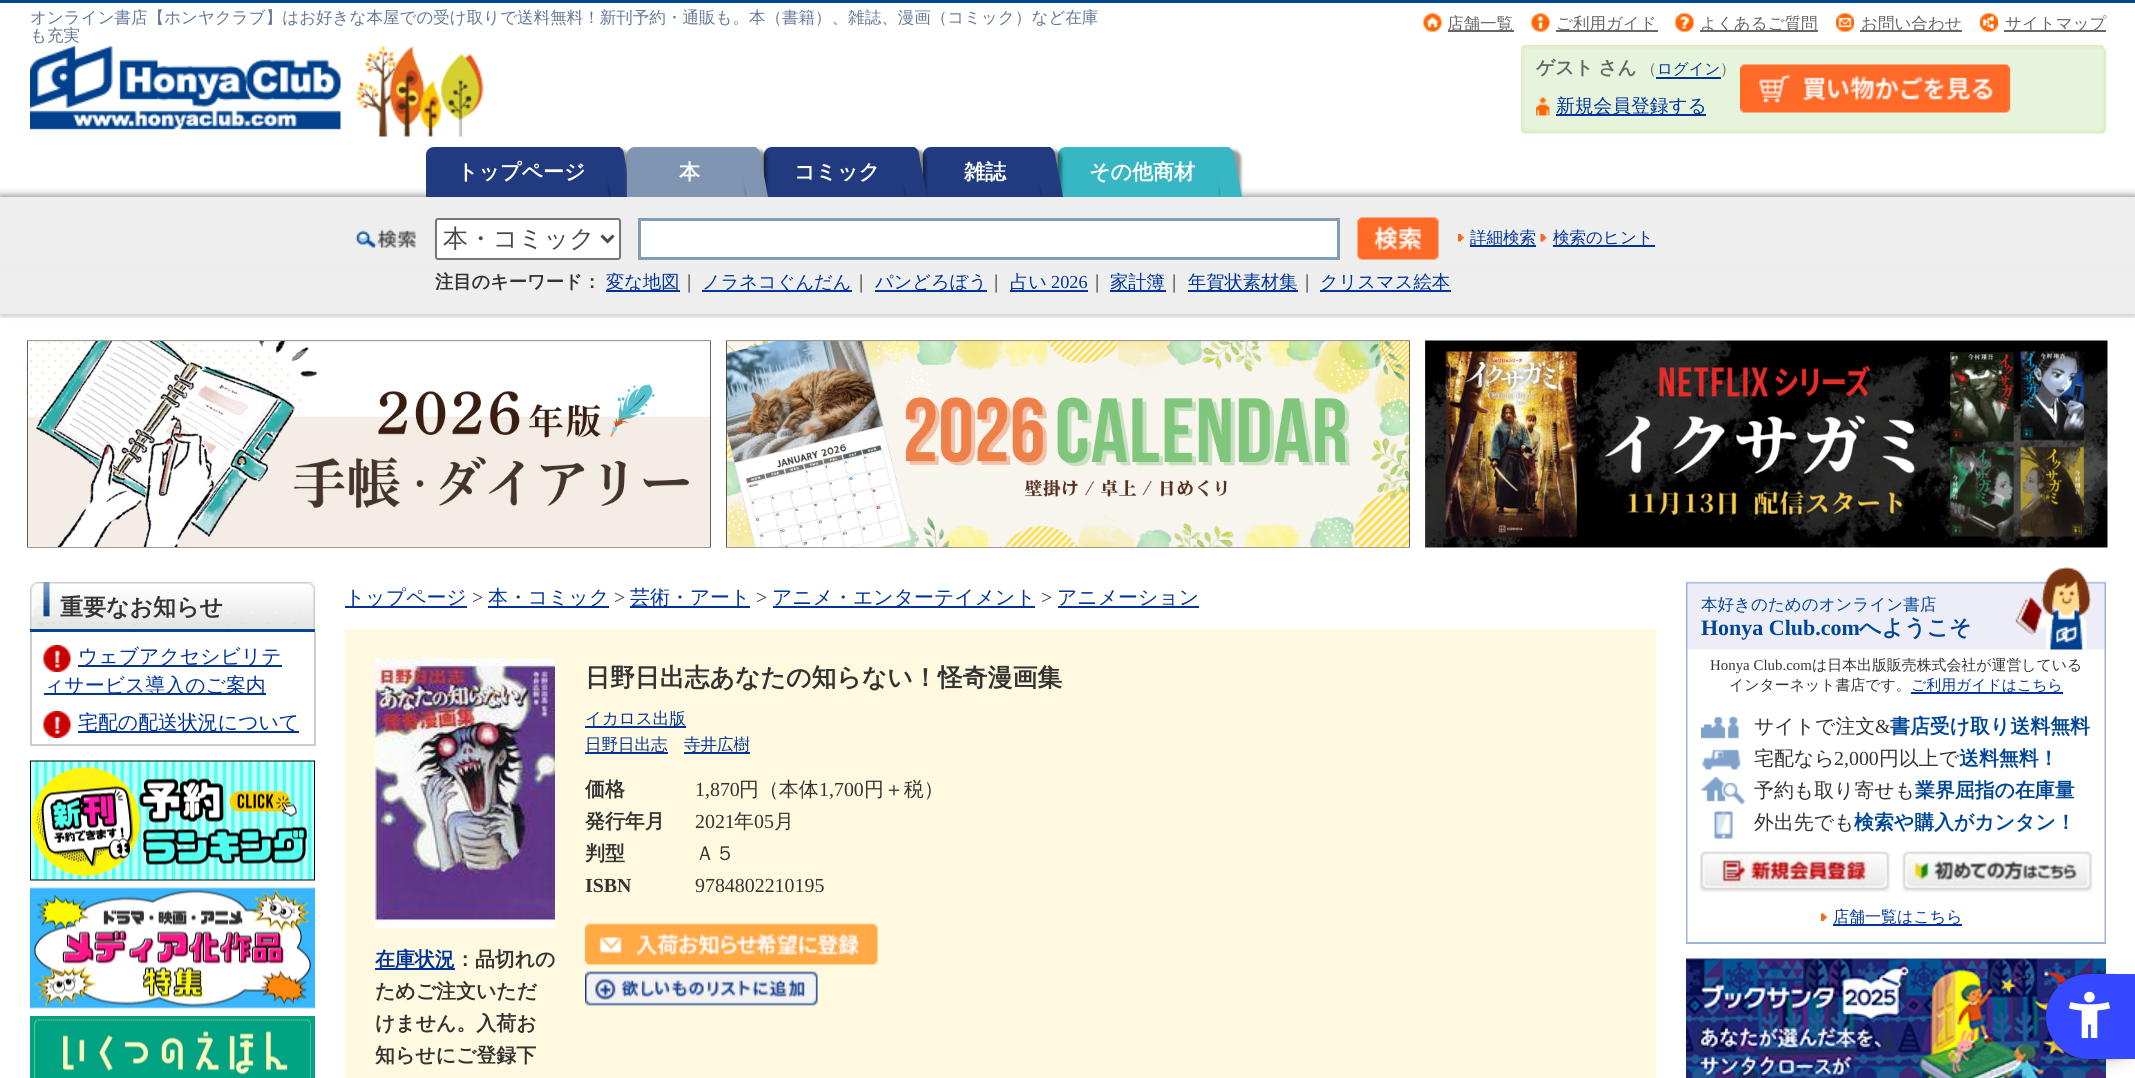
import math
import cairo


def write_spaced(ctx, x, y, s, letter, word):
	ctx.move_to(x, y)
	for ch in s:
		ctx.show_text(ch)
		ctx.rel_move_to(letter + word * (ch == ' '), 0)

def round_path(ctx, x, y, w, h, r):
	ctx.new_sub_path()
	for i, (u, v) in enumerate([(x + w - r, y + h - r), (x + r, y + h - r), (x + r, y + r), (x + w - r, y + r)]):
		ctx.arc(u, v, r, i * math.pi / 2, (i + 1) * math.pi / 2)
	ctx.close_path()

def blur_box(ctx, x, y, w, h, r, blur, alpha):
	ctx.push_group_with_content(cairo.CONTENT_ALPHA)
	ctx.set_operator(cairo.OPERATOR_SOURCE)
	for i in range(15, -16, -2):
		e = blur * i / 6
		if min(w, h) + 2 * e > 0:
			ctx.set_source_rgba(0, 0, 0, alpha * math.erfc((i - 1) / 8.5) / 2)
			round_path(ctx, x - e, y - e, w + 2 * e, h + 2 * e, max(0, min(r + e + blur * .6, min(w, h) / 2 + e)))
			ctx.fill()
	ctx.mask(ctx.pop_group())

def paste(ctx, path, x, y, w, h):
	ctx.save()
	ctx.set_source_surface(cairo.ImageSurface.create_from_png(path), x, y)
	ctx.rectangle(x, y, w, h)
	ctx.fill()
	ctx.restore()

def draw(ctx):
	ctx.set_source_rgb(1, 1, 1)
	ctx.paint()
	ctx.select_font_face('WenQuanYi Zen Hei Medium')
	ctx.set_font_size(16.53)
	ctx.set_source_rgb(0.384, 0.475, 0.592)
	ctx.move_to(30, 23)
	ctx.show_text('オンライン書店【ホンヤクラブ】はお好きな本屋での受け取りで送料無料！新刊予約・通販も。本（書籍）、雑誌、漫画（コミック）など在庫')
	ctx.move_to(30, 41)
	ctx.show_text('も充実')
	paste(ctx, 'media/1.png', 30, 582, 285, 47)
	ctx.set_source_rgb(0, 0.275, 0.592)
	ctx.rectangle(30, 629, 285, 3)
	ctx.fill()
	paste(ctx, 'media/2.png', 308, 582, 7, 47)
	ctx.select_font_face('WenQuanYi Zen Hei', cairo.FONT_SLANT_NORMAL, cairo.FONT_WEIGHT_BOLD)
	ctx.set_font_size(23)
	ctx.set_source_rgb(0.2, 0.2, 0.2)
	ctx.move_to(60, 615)
	ctx.show_text('重要なお知らせ')
	ctx.set_source_rgb(0.8, 0.8, 0.8)
	ctx.rectangle(314, 632, 2, 114)
	ctx.rectangle(30, 744, 285, 2)
	ctx.rectangle(30, 632, 2, 114)
	ctx.fill()
	paste(ctx, 'media/3.png', 43, 645, 28, 27)
	ctx.set_source_rgb(0, 0.2, 0.6)
	ctx.rectangle(78, 665, 204, 2)
	ctx.fill()
	ctx.select_font_face('WenQuanYi Zen Hei Medium')
	ctx.set_font_size(19.9)
	ctx.move_to(78, 663)
	ctx.show_text('ウェブアクセシビリテ')
	ctx.rectangle(44, 693, 222, 2)
	ctx.fill()
	ctx.move_to(44, 692)
	ctx.show_text('ィサービス導入のご案内')
	paste(ctx, 'media/3.png', 43, 711, 28, 27)
	ctx.rectangle(78, 731, 221, 2)
	ctx.fill()
	ctx.move_to(78, 729)
	ctx.show_text('宅配の配送状況について')
	paste(ctx, 'media/4.png', 30, 760, 285, 121)
	paste(ctx, 'media/5.png', 30, 887, 285, 122)
	paste(ctx, 'media/6.png', 30, 1016, 285, 62)
	ctx.rectangle(345, 606, 122, 2)
	ctx.fill()
	ctx.move_to(345, 604)
	ctx.show_text('トップページ')
	ctx.select_font_face('Liberation Serif')
	ctx.set_source_rgb(0.2, 0.2, 0.2)
	ctx.move_to(472, 604)
	ctx.show_text('>')
	ctx.set_source_rgb(0, 0.2, 0.6)
	ctx.rectangle(488, 606, 121, 2)
	ctx.fill()
	ctx.select_font_face('WenQuanYi Zen Hei Medium')
	ctx.move_to(488, 604)
	ctx.show_text('本・コミック')
	ctx.select_font_face('Liberation Serif')
	ctx.set_source_rgb(0.2, 0.2, 0.2)
	ctx.move_to(614, 604)
	ctx.show_text('>')
	ctx.set_source_rgb(0, 0.2, 0.6)
	ctx.rectangle(630, 606, 120, 2)
	ctx.fill()
	ctx.select_font_face('WenQuanYi Zen Hei Medium')
	ctx.move_to(630, 604)
	ctx.show_text('芸術・アート')
	ctx.select_font_face('Liberation Serif')
	ctx.set_source_rgb(0.2, 0.2, 0.2)
	ctx.move_to(756, 604)
	ctx.show_text('>')
	ctx.set_source_rgb(0, 0.2, 0.6)
	ctx.rectangle(773, 606, 262, 2)
	ctx.fill()
	ctx.select_font_face('WenQuanYi Zen Hei Medium')
	ctx.move_to(772, 604)
	ctx.show_text('アニメ・エンターテイメント')
	ctx.select_font_face('Liberation Serif')
	ctx.set_source_rgb(0.2, 0.2, 0.2)
	ctx.move_to(1041, 604)
	ctx.show_text('>')
	ctx.select_font_face('WenQuanYi Zen Hei Medium')
	ctx.set_source_rgb(0, 0.2, 0.6)
	ctx.move_to(1057, 604)
	ctx.show_text('アニメーション')
	ctx.rectangle(1058, 606, 141, 2)
	ctx.fill()
	ctx.set_source_rgb(1, 0.976, 0.875)
	ctx.rectangle(345, 629, 1311, 449)
	ctx.fill()
	ctx.select_font_face('WenQuanYi Zen Hei', cairo.FONT_SLANT_NORMAL, cairo.FONT_WEIGHT_BOLD)
	ctx.set_font_size(24.9)
	ctx.set_source_rgb(0.2, 0.2, 0.2)
	ctx.move_to(585, 686)
	ctx.show_text('日野日出志あなたの知らない！怪奇漫画集')
	ctx.set_source_rgb(0, 0.2, 0.6)
	ctx.rectangle(585, 726, 101, 2)
	ctx.fill()
	ctx.select_font_face('WenQuanYi Zen Hei Medium')
	ctx.set_font_size(16.53)
	ctx.move_to(585, 724)
	ctx.show_text('イカロス出版')
	ctx.rectangle(585, 752, 83, 2)
	ctx.fill()
	ctx.move_to(585, 750)
	ctx.show_text('日野日出志')
	ctx.rectangle(684, 752, 66, 2)
	ctx.fill()
	ctx.move_to(684, 750)
	ctx.show_text('寺井広樹')
	ctx.select_font_face('WenQuanYi Zen Hei', cairo.FONT_SLANT_NORMAL, cairo.FONT_WEIGHT_BOLD)
	ctx.set_font_size(19.9)
	ctx.set_source_rgb(0.2, 0.2, 0.2)
	ctx.move_to(585, 796)
	ctx.show_text('価格')
	ctx.select_font_face('Liberation Serif')
	ctx.move_to(695, 796)
	ctx.show_text('1,870')
	ctx.select_font_face('WenQuanYi Zen Hei Medium')
	ctx.move_to(739, 796)
	ctx.show_text('円（本体')
	ctx.select_font_face('Liberation Serif')
	ctx.move_to(819, 796)
	ctx.show_text('1,700')
	ctx.select_font_face('WenQuanYi Zen Hei Medium')
	ctx.move_to(864, 796)
	ctx.show_text('円＋税）')
	ctx.select_font_face('WenQuanYi Zen Hei', cairo.FONT_SLANT_NORMAL, cairo.FONT_WEIGHT_BOLD)
	ctx.move_to(585, 828)
	ctx.show_text('発行年月')
	ctx.select_font_face('Liberation Serif')
	ctx.move_to(695, 828)
	ctx.show_text('2021')
	ctx.select_font_face('WenQuanYi Zen Hei Medium')
	ctx.move_to(734, 828)
	ctx.show_text('年')
	ctx.select_font_face('Liberation Serif')
	ctx.move_to(754, 828)
	ctx.show_text('05')
	ctx.select_font_face('WenQuanYi Zen Hei Medium')
	ctx.move_to(774, 828)
	ctx.show_text('月')
	ctx.select_font_face('WenQuanYi Zen Hei', cairo.FONT_SLANT_NORMAL, cairo.FONT_WEIGHT_BOLD)
	ctx.move_to(585, 860)
	ctx.show_text('判型')
	ctx.select_font_face('WenQuanYi Zen Hei Medium')
	ctx.move_to(695, 860)
	ctx.show_text('Ａ５')
	ctx.select_font_face('Liberation Serif', cairo.FONT_SLANT_NORMAL, cairo.FONT_WEIGHT_BOLD)
	ctx.move_to(585, 892)
	ctx.show_text('ISBN')
	ctx.select_font_face('Liberation Serif')
	ctx.move_to(695, 892)
	ctx.show_text('9784802210195')
	paste(ctx, 'media/7.png', 585, 923, 293, 42)
	paste(ctx, 'media/8.png', 585, 971, 233, 35)
	paste(ctx, 'media/9.png', 375, 658, 180, 271)
	ctx.set_source_rgb(0, 0.2, 0.6)
	ctx.rectangle(375, 968, 80, 2)
	ctx.fill()
	ctx.select_font_face('WenQuanYi Zen Hei', cairo.FONT_SLANT_NORMAL, cairo.FONT_WEIGHT_BOLD)
	ctx.move_to(375, 966)
	ctx.show_text('在庫状況')
	ctx.set_source_rgb(0.2, 0.2, 0.2)
	for x, y, s in [
		(455, 966, '：品切れの'),
		(375, 998, 'ためご注文いただ'),
		(375, 1030, 'けません。入荷お'),
		(375, 1062, '知らせにご登録下'),
	]:
		ctx.move_to(x, y)
		ctx.show_text(s)
	paste(ctx, 'media/10.png', 1686, 649, 420, 293)
	ctx.set_source_rgb(0.608, 0.714, 0.831)
	ctx.rectangle(1686, 942, 420, 2)
	ctx.fill()
	paste(ctx, 'media/11.png', 1686, 567, 420, 83)
	ctx.select_font_face('WenQuanYi Zen Hei Medium')
	ctx.set_font_size(16.53)
	ctx.set_source_rgb(0, 0.275, 0.592)
	ctx.move_to(1701, 610)
	ctx.show_text('本好きのためのオンライン書店')
	ctx.select_font_face('Liberation Serif', cairo.FONT_SLANT_NORMAL, cairo.FONT_WEIGHT_BOLD)
	ctx.set_font_size(22)
	ctx.move_to(1701, 635)
	ctx.show_text('Honya Club.com')
	ctx.select_font_face('WenQuanYi Zen Hei', cairo.FONT_SLANT_NORMAL, cairo.FONT_WEIGHT_BOLD)
	ctx.move_to(1859, 635)
	ctx.show_text('へようこそ')
	ctx.select_font_face('Liberation Serif')
	ctx.set_font_size(14.9)
	ctx.set_source_rgb(0.2, 0.2, 0.2)
	ctx.move_to(1710, 670)
	ctx.show_text('Honya Club.com')
	ctx.select_font_face('WenQuanYi Zen Hei Medium')
	ctx.move_to(1812, 670)
	ctx.show_text('は日本出版販売株式会社が運営している')
	ctx.move_to(1729, 690)
	ctx.show_text('インターネット書店です。')
	ctx.set_source_rgb(0, 0.2, 0.6)
	ctx.rectangle(1911, 692, 152, 2)
	ctx.fill()
	ctx.move_to(1911, 690)
	ctx.show_text('ご利用ガイドはこちら')
	paste(ctx, 'media/12.png', 1701, 716, 38, 23)
	ctx.set_font_size(19.9)
	ctx.set_source_rgb(0.2, 0.2, 0.2)
	ctx.move_to(1754, 733)
	ctx.show_text('サイトで注文')
	ctx.select_font_face('Liberation Serif')
	ctx.move_to(1875, 733)
	ctx.show_text('&')
	ctx.select_font_face('WenQuanYi Zen Hei', cairo.FONT_SLANT_NORMAL, cairo.FONT_WEIGHT_BOLD)
	ctx.set_source_rgb(0, 0.275, 0.592)
	ctx.move_to(1890, 733)
	ctx.show_text('書店受け取り送料無料')
	paste(ctx, 'media/13.png', 1702, 749, 39, 21)
	ctx.select_font_face('WenQuanYi Zen Hei Medium')
	ctx.set_source_rgb(0.2, 0.2, 0.2)
	ctx.move_to(1754, 765)
	ctx.show_text('宅配なら')
	ctx.select_font_face('Liberation Serif')
	ctx.move_to(1834, 765)
	ctx.show_text('2,000')
	ctx.select_font_face('WenQuanYi Zen Hei Medium')
	ctx.move_to(1879, 765)
	ctx.show_text('円以上で')
	ctx.select_font_face('WenQuanYi Zen Hei', cairo.FONT_SLANT_NORMAL, cairo.FONT_WEIGHT_BOLD)
	ctx.set_source_rgb(0, 0.275, 0.592)
	ctx.move_to(1959, 765)
	ctx.show_text('送料無料！')
	paste(ctx, 'media/14.png', 1701, 776, 44, 29)
	ctx.select_font_face('WenQuanYi Zen Hei Medium')
	ctx.set_source_rgb(0.2, 0.2, 0.2)
	ctx.move_to(1754, 797)
	ctx.show_text('予約も取り寄せも')
	ctx.select_font_face('WenQuanYi Zen Hei', cairo.FONT_SLANT_NORMAL, cairo.FONT_WEIGHT_BOLD)
	ctx.set_source_rgb(0, 0.275, 0.592)
	ctx.move_to(1915, 797)
	ctx.show_text('業界屈指の在庫量')
	paste(ctx, 'media/15.png', 1714, 811, 19, 28)
	ctx.select_font_face('WenQuanYi Zen Hei Medium')
	ctx.set_source_rgb(0.2, 0.2, 0.2)
	ctx.move_to(1754, 829)
	ctx.show_text('外出先でも')
	ctx.select_font_face('WenQuanYi Zen Hei', cairo.FONT_SLANT_NORMAL, cairo.FONT_WEIGHT_BOLD)
	ctx.set_source_rgb(0, 0.275, 0.592)
	ctx.move_to(1854, 829)
	ctx.show_text('検索や購入がカンタン！')
	paste(ctx, 'media/16.png', 1699, 851, 192, 42)
	paste(ctx, 'media/17.png', 1901, 851, 192, 42)
	paste(ctx, 'media/18.png', 1821, 913, 6, 8)
	ctx.set_source_rgb(0, 0.2, 0.6)
	ctx.rectangle(1833, 924, 129, 2)
	ctx.fill()
	ctx.select_font_face('WenQuanYi Zen Hei Medium')
	ctx.set_font_size(16)
	ctx.move_to(1833, 922)
	ctx.show_text('店舗一覧はこちら')
	paste(ctx, 'media/19.png', 1686, 958, 420, 120)
	ctx.set_source_rgb(0, 0.275, 0.592)
	ctx.rectangle(0, 0, 2135, 3)
	ctx.fill()
	paste(ctx, 'media/20.png', 30, 46, 454, 91)
	paste(ctx, 'media/21.png', 1423, 13, 19, 19)
	ctx.set_source_rgb(0.4, 0.4, 0.4)
	ctx.rectangle(1448, 30, 66, 2)
	ctx.fill()
	ctx.set_font_size(16.53)
	ctx.move_to(1447, 29)
	ctx.show_text('店舗一覧')
	paste(ctx, 'media/22.png', 1531, 13, 19, 19)
	ctx.rectangle(1556, 30, 102, 2)
	ctx.fill()
	ctx.move_to(1556, 29)
	ctx.show_text('ご利用ガイド')
	paste(ctx, 'media/23.png', 1675, 13, 19, 19)
	ctx.rectangle(1700, 30, 118, 2)
	ctx.fill()
	ctx.move_to(1700, 29)
	ctx.show_text('よくあるご質問')
	paste(ctx, 'media/24.png', 1836, 13, 18, 19)
	ctx.rectangle(1860, 30, 102, 2)
	ctx.fill()
	ctx.move_to(1861, 29)
	ctx.show_text('お問い合わせ')
	paste(ctx, 'media/25.png', 1980, 13, 18, 19)
	ctx.rectangle(2004, 30, 102, 2)
	ctx.fill()
	ctx.move_to(2005, 29)
	ctx.show_text('サイトマップ')
	paste(ctx, 'media/26.png', 1521, 49, 585, 85)
	paste(ctx, 'media/27.png', 1521, 45, 585, 5)
	ctx.select_font_face('WenQuanYi Zen Hei', cairo.FONT_SLANT_NORMAL, cairo.FONT_WEIGHT_BOLD)
	ctx.set_font_size(18.75)
	write_spaced(ctx, 1536, 74, 'ゲスト さん', 0, -1)
	ctx.select_font_face('WenQuanYi Zen Hei Medium')
	ctx.set_font_size(15.5)
	ctx.move_to(1641, 74)
	ctx.show_text('（')
	ctx.set_source_rgb(0, 0.2, 0.6)
	ctx.rectangle(1656, 77, 65, 2)
	ctx.fill()
	ctx.move_to(1657, 74)
	ctx.show_text('ログイン')
	ctx.set_source_rgb(0.4, 0.4, 0.4)
	ctx.move_to(1720, 74)
	ctx.show_text('）')
	paste(ctx, 'media/28.png', 1536, 97, 14, 19)
	ctx.set_source_rgb(0, 0.2, 0.6)
	ctx.rectangle(1556, 114, 150, 2)
	ctx.fill()
	ctx.set_font_size(18.75)
	ctx.move_to(1556, 112)
	ctx.show_text('新規会員登録する')
	paste(ctx, 'media/29.png', 1740, 64, 271, 49)
	ctx.set_source_rgb(0, 0, 0)
	blur_box(ctx, 0, 197, 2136, 72, 0, 4.5, 0.6)
	ctx.set_source_rgb(0.933, 0.933, 0.933)
	ctx.rectangle(0, 197, 2135, 72)
	ctx.fill()
	ctx.save()
	ctx.rectangle(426, 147, 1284, 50)
	ctx.clip()
	ctx.set_source_rgb(0.4, 0.4, 0.4)
	blur_box(ctx, 426, 150, 191, 50, 8, 1.5, 1)
	ctx.restore()
	ctx.set_source_rgb(0.133, 0.231, 0.502)
	ctx.new_path()
	ctx.move_to(434, 147)
	ctx.line_to(617, 147)
	ctx.line_to(617, 197)
	ctx.line_to(426, 197)
	ctx.line_to(426, 155)
	ctx.curve_to(426, 150.5, 429.5, 147, 434, 147)
	ctx.close_path()
	ctx.fill()
	ctx.select_font_face('WenQuanYi Zen Hei', cairo.FONT_SLANT_NORMAL, cairo.FONT_WEIGHT_BOLD)
	ctx.set_font_size(21)
	ctx.set_source_rgb(1, 1, 1)
	ctx.move_to(457, 179)
	ctx.show_text('トップページ')
	ctx.save()
	ctx.rectangle(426, 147, 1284, 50)
	ctx.clip()
	ctx.set_source_rgb(0, 0, 0)
	blur_box(ctx, 609, 150, 21, 50, 8, 1.5, 0.4)
	ctx.restore()
	ctx.save()
	ctx.rectangle(426, 147, 1284, 50)
	ctx.clip()
	ctx.set_source_rgb(0.133, 0.231, 0.502)
	ctx.new_path()
	ctx.move_to(602, 146)
	ctx.line_to(616, 146)
	ctx.curve_to(620, 146, 624, 150, 624, 154)
	ctx.line_to(632, 197)
	ctx.line_to(611, 197)
	ctx.close_path()
	ctx.fill()
	ctx.restore()
	ctx.save()
	ctx.rectangle(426, 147, 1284, 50)
	ctx.clip()
	ctx.set_source_rgb(0.4, 0.4, 0.4)
	blur_box(ctx, 627, 150, 126, 50, 8, 1.5, 1)
	ctx.restore()
	ctx.set_source_rgb(0.498, 0.584, 0.698)
	ctx.new_path()
	ctx.move_to(635, 147)
	ctx.line_to(753, 147)
	ctx.line_to(753, 197)
	ctx.line_to(627, 197)
	ctx.line_to(627, 155)
	ctx.curve_to(627, 150.5, 630.5, 147, 635, 147)
	ctx.close_path()
	ctx.fill()
	ctx.set_source_rgb(1, 1, 1)
	ctx.move_to(679, 179)
	ctx.show_text('本')
	ctx.save()
	ctx.rectangle(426, 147, 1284, 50)
	ctx.clip()
	ctx.set_source_rgb(0.4, 0.4, 0.4)
	blur_box(ctx, 764, 150, 148, 50, 8, 1.5, 1)
	ctx.restore()
	ctx.set_source_rgb(0.133, 0.231, 0.502)
	ctx.new_path()
	ctx.move_to(772, 147)
	ctx.line_to(912, 147)
	ctx.line_to(912, 197)
	ctx.line_to(764, 197)
	ctx.line_to(764, 155)
	ctx.curve_to(764, 150.5, 767.5, 147, 772, 147)
	ctx.close_path()
	ctx.fill()
	ctx.save()
	ctx.rectangle(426, 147, 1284, 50)
	ctx.clip()
	ctx.set_source_rgb(0, 0, 0)
	blur_box(ctx, 746, 150, 21, 50, 8, 1.5, 0.4)
	ctx.restore()
	ctx.save()
	ctx.rectangle(426, 147, 1284, 50)
	ctx.clip()
	ctx.set_source_rgb(0.498, 0.584, 0.698)
	ctx.new_path()
	ctx.move_to(738, 146)
	ctx.line_to(752, 146)
	ctx.curve_to(756, 146, 760, 150, 760, 154)
	ctx.line_to(768, 197)
	ctx.line_to(747, 197)
	ctx.close_path()
	ctx.fill()
	ctx.restore()
	ctx.set_source_rgb(1, 1, 1)
	ctx.move_to(794, 179)
	ctx.show_text('コミック')
	ctx.save()
	ctx.rectangle(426, 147, 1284, 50)
	ctx.clip()
	ctx.set_source_rgb(0.4, 0.4, 0.4)
	blur_box(ctx, 923, 150, 126, 50, 8, 1.5, 1)
	ctx.restore()
	ctx.set_source_rgb(0.133, 0.231, 0.502)
	ctx.new_path()
	ctx.move_to(931, 147)
	ctx.line_to(1049, 147)
	ctx.line_to(1049, 197)
	ctx.line_to(923, 197)
	ctx.line_to(923, 155)
	ctx.curve_to(923, 150.5, 926.5, 147, 931, 147)
	ctx.close_path()
	ctx.fill()
	ctx.save()
	ctx.rectangle(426, 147, 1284, 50)
	ctx.clip()
	ctx.set_source_rgb(0, 0, 0)
	blur_box(ctx, 905, 150, 21, 50, 8, 1.5, 0.4)
	ctx.restore()
	ctx.save()
	ctx.rectangle(426, 147, 1284, 50)
	ctx.clip()
	ctx.new_path()
	ctx.move_to(897, 146)
	ctx.line_to(910, 146)
	ctx.curve_to(915, 146, 919, 150, 919, 154)
	ctx.line_to(927, 197)
	ctx.line_to(906, 197)
	ctx.close_path()
	ctx.fill()
	ctx.restore()
	ctx.set_source_rgb(1, 1, 1)
	ctx.move_to(964, 179)
	ctx.show_text('雑誌')
	ctx.save()
	ctx.rectangle(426, 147, 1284, 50)
	ctx.clip()
	ctx.set_source_rgb(0.4, 0.4, 0.4)
	blur_box(ctx, 1058, 150, 169, 50, 8, 1.5, 1)
	ctx.restore()
	ctx.set_source_rgb(0.216, 0.718, 0.765)
	ctx.new_path()
	ctx.move_to(1066, 147)
	ctx.line_to(1227, 147)
	ctx.line_to(1227, 197)
	ctx.line_to(1058, 197)
	ctx.line_to(1058, 155)
	ctx.curve_to(1058, 150.5, 1061.5, 147, 1066, 147)
	ctx.close_path()
	ctx.fill()
	ctx.save()
	ctx.rectangle(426, 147, 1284, 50)
	ctx.clip()
	ctx.set_source_rgb(0, 0, 0)
	blur_box(ctx, 1041, 150, 21, 50, 8, 1.5, 0.4)
	ctx.restore()
	ctx.save()
	ctx.rectangle(426, 147, 1284, 50)
	ctx.clip()
	ctx.set_source_rgb(0.133, 0.231, 0.502)
	ctx.new_path()
	ctx.move_to(1033, 146)
	ctx.line_to(1046, 146)
	ctx.curve_to(1051, 146, 1054, 150, 1055, 154)
	ctx.line_to(1063, 197)
	ctx.line_to(1042, 197)
	ctx.close_path()
	ctx.fill()
	ctx.restore()
	ctx.set_source_rgb(1, 1, 1)
	ctx.move_to(1089, 179)
	ctx.show_text('その他商材')
	ctx.save()
	ctx.rectangle(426, 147, 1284, 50)
	ctx.clip()
	ctx.set_source_rgb(0, 0, 0)
	blur_box(ctx, 1220, 150, 21, 50, 8, 1.5, 0.4)
	ctx.restore()
	ctx.save()
	ctx.rectangle(426, 147, 1284, 50)
	ctx.clip()
	ctx.set_source_rgb(0.216, 0.718, 0.765)
	ctx.new_path()
	ctx.move_to(1212, 146)
	ctx.line_to(1225, 146)
	ctx.curve_to(1229, 146, 1233, 150, 1234, 154)
	ctx.line_to(1242, 197)
	ctx.line_to(1221, 197)
	ctx.close_path()
	ctx.fill()
	ctx.restore()
	paste(ctx, 'media/30.png', 355, 229, 61, 19)
	round_path(ctx, 436, 219, 184, 40, 2)
	ctx.fill_preserve()
	ctx.set_source_rgb(0.463, 0.463, 0.463)
	ctx.stroke()
	ctx.new_path()
	ctx.move_to(601.5, 235.5)
	ctx.line_to(607.5, 241.5)
	ctx.line_to(613.5, 235.5)
	ctx.set_source_rgb(0.286, 0.286, 0.286)
	ctx.set_line_width(3)
	ctx.stroke()
	ctx.select_font_face('WenQuanYi Zen Hei Medium')
	ctx.set_font_size(24.9)
	ctx.move_to(443, 247)
	ctx.show_text('本・コミック')
	ctx.set_source_rgb(1, 1, 1)
	ctx.rectangle(639.5, 219.5, 699, 39)
	ctx.fill_preserve()
	ctx.set_source_rgb(0.498, 0.616, 0.725)
	ctx.stroke()
	paste(ctx, 'media/31.png', 1357, 217, 82, 43)
	paste(ctx, 'media/32.png', 1458, 234, 6, 8)
	ctx.set_source_rgb(0, 0.2, 0.6)
	ctx.rectangle(1470, 245, 66, 2)
	ctx.fill()
	ctx.set_font_size(16.53)
	ctx.move_to(1470, 243)
	ctx.show_text('詳細検索')
	paste(ctx, 'media/33.png', 1540, 234, 7, 8)
	ctx.rectangle(1553, 245, 102, 2)
	ctx.fill()
	ctx.move_to(1553, 243)
	ctx.show_text('検索のヒント')
	ctx.set_source_rgb(0.8, 0.8, 0.8)
	blur_box(ctx, 0, 272, 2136, 45, 0, 3, 1)
	ctx.set_source_rgb(0.933, 0.933, 0.933)
	ctx.rectangle(0, 269, 2135, 45)
	ctx.fill()
	ctx.select_font_face('WenQuanYi Zen Hei', cairo.FONT_SLANT_NORMAL, cairo.FONT_WEIGHT_BOLD)
	ctx.set_font_size(18.25)
	ctx.set_source_rgb(0.2, 0.2, 0.2)
	ctx.move_to(435, 288)
	ctx.show_text('注目のキーワード：')
	ctx.set_source_rgb(0, 0.2, 0.6)
	ctx.rectangle(606, 290, 74, 2)
	ctx.fill()
	ctx.select_font_face('WenQuanYi Zen Hei Medium')
	ctx.move_to(606, 288)
	ctx.show_text('変な地図')
	ctx.set_source_rgb(0.2, 0.2, 0.2)
	ctx.move_to(680, 288)
	ctx.show_text('｜')
	ctx.set_source_rgb(0, 0.2, 0.6)
	ctx.rectangle(702, 290, 150, 2)
	ctx.fill()
	ctx.move_to(702, 288)
	ctx.show_text('ノラネコぐんだん')
	ctx.set_source_rgb(0.2, 0.2, 0.2)
	ctx.move_to(852, 288)
	ctx.show_text('｜')
	ctx.set_source_rgb(0, 0.2, 0.6)
	ctx.rectangle(875, 290, 112, 2)
	ctx.fill()
	ctx.move_to(875, 288)
	ctx.show_text('パンどろぼう')
	ctx.set_source_rgb(0.2, 0.2, 0.2)
	ctx.move_to(987, 288)
	ctx.show_text('｜')
	ctx.set_source_rgb(0, 0.2, 0.6)
	ctx.rectangle(1010, 290, 78, 2)
	ctx.fill()
	ctx.move_to(1010, 288)
	ctx.show_text('占い')
	ctx.select_font_face('Liberation Serif')
	ctx.move_to(1051, 288)
	ctx.show_text('2026')
	ctx.select_font_face('WenQuanYi Zen Hei Medium')
	ctx.set_source_rgb(0.2, 0.2, 0.2)
	ctx.move_to(1088, 288)
	ctx.show_text('｜')
	ctx.set_source_rgb(0, 0.2, 0.6)
	ctx.rectangle(1110, 290, 56, 2)
	ctx.fill()
	ctx.move_to(1110, 288)
	ctx.show_text('家計簿')
	ctx.set_source_rgb(0.2, 0.2, 0.2)
	ctx.move_to(1165, 288)
	ctx.show_text('｜')
	ctx.set_source_rgb(0, 0.2, 0.6)
	ctx.rectangle(1188, 290, 110, 2)
	ctx.fill()
	ctx.move_to(1188, 288)
	ctx.show_text('年賀状素材集')
	ctx.set_source_rgb(0.2, 0.2, 0.2)
	ctx.move_to(1298, 288)
	ctx.show_text('｜')
	ctx.set_source_rgb(0, 0.2, 0.6)
	ctx.rectangle(1320, 290, 131, 2)
	ctx.fill()
	ctx.move_to(1320, 288)
	ctx.show_text('クリスマス絵本')
	ctx.set_source_rgb(1, 1, 1)
	ctx.rectangle(0, 318, 2135, 4)
	ctx.fill()
	paste(ctx, 'media/34.png', 27, 340, 684, 208)
	paste(ctx, 'media/35.png', 726, 340, 684, 208)
	paste(ctx, 'media/36.png', 1425, 340, 683, 208)
	ctx.set_source_rgb(0, 0, 0)
	blur_box(ctx, 2046, 980, 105, 85, 42.5, 6, 0.09)
	blur_box(ctx, 2046, 975, 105, 86, 43, 2, 0.09)
	blur_box(ctx, 2046, 974, 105, 85, 42.5, 0.5, 0.4)
	ctx.set_source_rgb(0.212, 0.286, 1)
	ctx.new_path()
	ctx.move_to(2088.5, 974)
	ctx.line_to(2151, 974)
	ctx.line_to(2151, 1059)
	ctx.line_to(2088.5, 1059)
	ctx.curve_to(2065, 1059, 2046, 1040, 2046, 1016.5)
	ctx.curve_to(2046, 993, 2065, 974, 2088.5, 974)
	ctx.close_path()
	ctx.fill()
	paste(ctx, 'media/37.png', 2068, 991, 43, 47)


surface = cairo.ImageSurface(cairo.FORMAT_RGB24, 2135, 1078)
ctx = cairo.Context(surface)
options = cairo.FontOptions()
options.set_hint_metrics(cairo.HINT_METRICS_OFF)
options.set_hint_style(cairo.HINT_STYLE_NONE)
ctx.set_font_options(options)
ctx.set_miter_limit(4)
draw(ctx)
surface.write_to_png('image.png')
